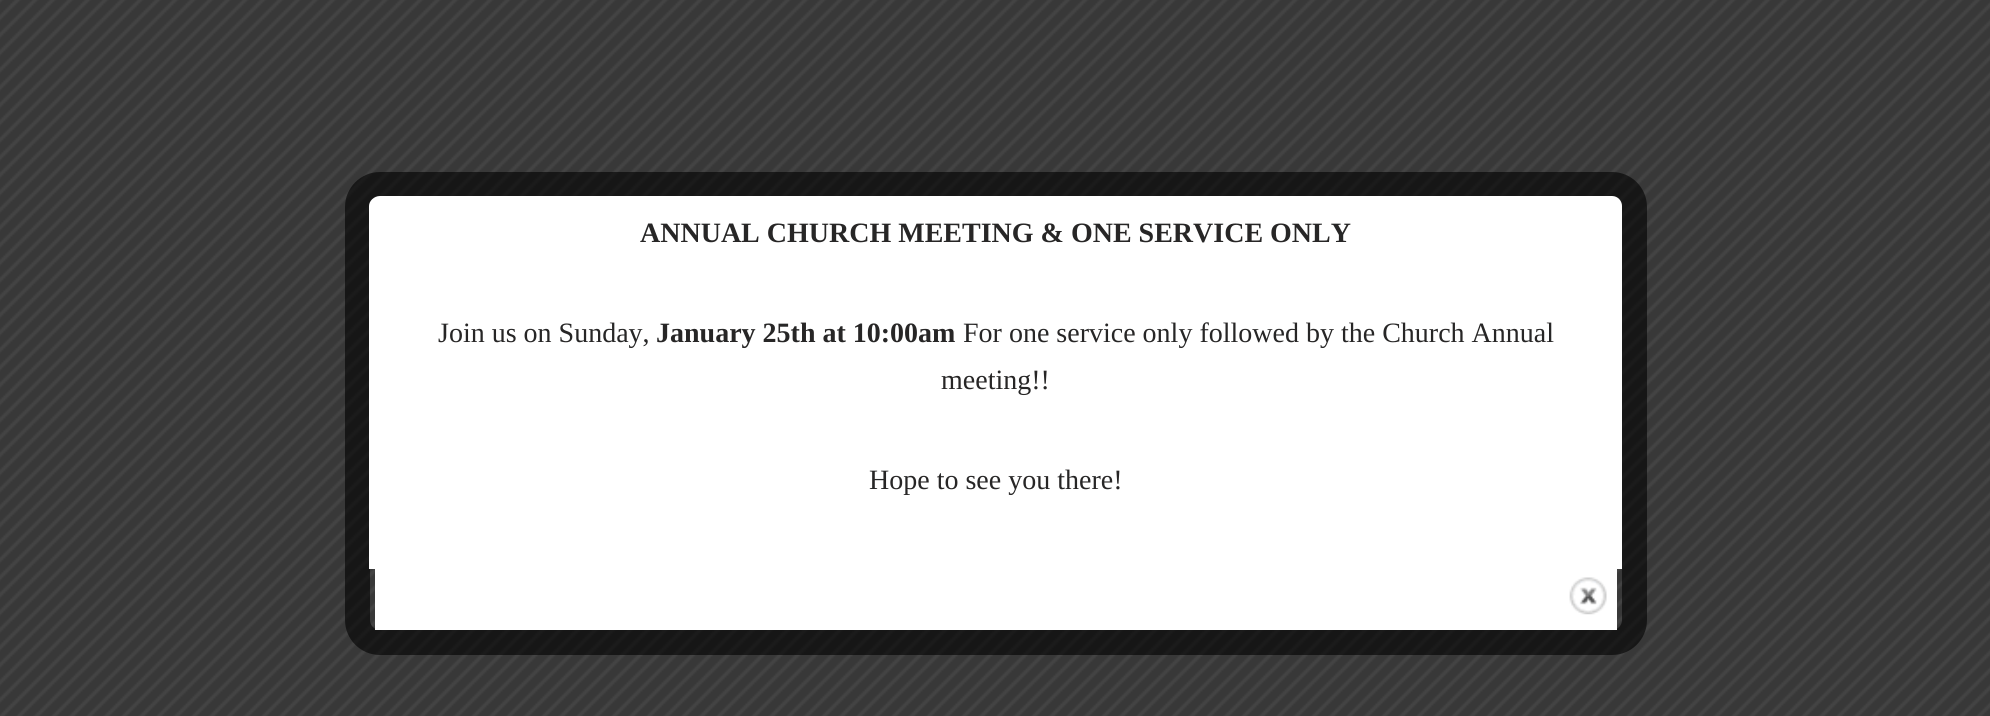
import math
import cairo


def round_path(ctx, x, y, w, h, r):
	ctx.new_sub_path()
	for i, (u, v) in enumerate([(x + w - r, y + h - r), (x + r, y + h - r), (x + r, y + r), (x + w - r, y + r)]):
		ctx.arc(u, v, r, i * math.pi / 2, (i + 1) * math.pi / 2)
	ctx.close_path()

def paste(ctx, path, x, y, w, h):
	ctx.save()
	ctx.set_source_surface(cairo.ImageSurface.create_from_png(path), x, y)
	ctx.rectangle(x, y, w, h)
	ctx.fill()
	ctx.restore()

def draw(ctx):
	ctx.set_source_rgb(1, 1, 1)
	ctx.paint()
	paste(ctx, 'media/1.png', 0, 0, 1990, 716)
	round_path(ctx, 357.5, 184.5, 1277, 458, 22.5)
	ctx.set_source_rgba(0, 0, 0, 0.6)
	ctx.set_line_width(25)
	ctx.stroke()
	ctx.set_source_rgb(1, 1, 1)
	ctx.new_path()
	ctx.move_to(380, 196)
	ctx.line_to(1612, 196)
	ctx.curve_to(1618, 196, 1622, 201, 1622, 206)
	ctx.line_to(1622, 569)
	ctx.line_to(369, 569)
	ctx.line_to(369, 206)
	ctx.curve_to(369, 201, 374, 196, 380, 196)
	ctx.close_path()
	ctx.fill()
	ctx.rectangle(375, 569, 1242, 61)
	ctx.fill()
	ctx.select_font_face('Liberation Serif', cairo.FONT_SLANT_NORMAL, cairo.FONT_WEIGHT_BOLD)
	ctx.set_font_size(28)
	ctx.set_source_rgb(0.153, 0.149, 0.149)
	ctx.move_to(640, 242)
	ctx.show_text('ANNUAL CHURCH MEETING & ONE SERVICE ONLY')
	ctx.select_font_face('Liberation Serif')
	ctx.move_to(438, 342)
	ctx.show_text('Join us on Sunday,')
	ctx.select_font_face('Liberation Serif', cairo.FONT_SLANT_NORMAL, cairo.FONT_WEIGHT_BOLD)
	ctx.move_to(656, 342)
	ctx.show_text('January 25th at 10:00am')
	ctx.select_font_face('Liberation Serif')
	for x, y, s in [
		(963, 342, 'For one service only followed by the Church Annual'),
		(941, 389, 'meeting!!'),
		(869, 489, 'Hope to see you there!'),
	]:
		ctx.move_to(x, y)
		ctx.show_text(s)
	paste(ctx, 'media/2.png', 1569, 577, 38, 38)


surface = cairo.ImageSurface(cairo.FORMAT_RGB24, 1990, 716)
ctx = cairo.Context(surface)
options = cairo.FontOptions()
options.set_hint_metrics(cairo.HINT_METRICS_OFF)
options.set_hint_style(cairo.HINT_STYLE_NONE)
ctx.set_font_options(options)
ctx.set_miter_limit(4)
draw(ctx)
surface.write_to_png('image.png')
